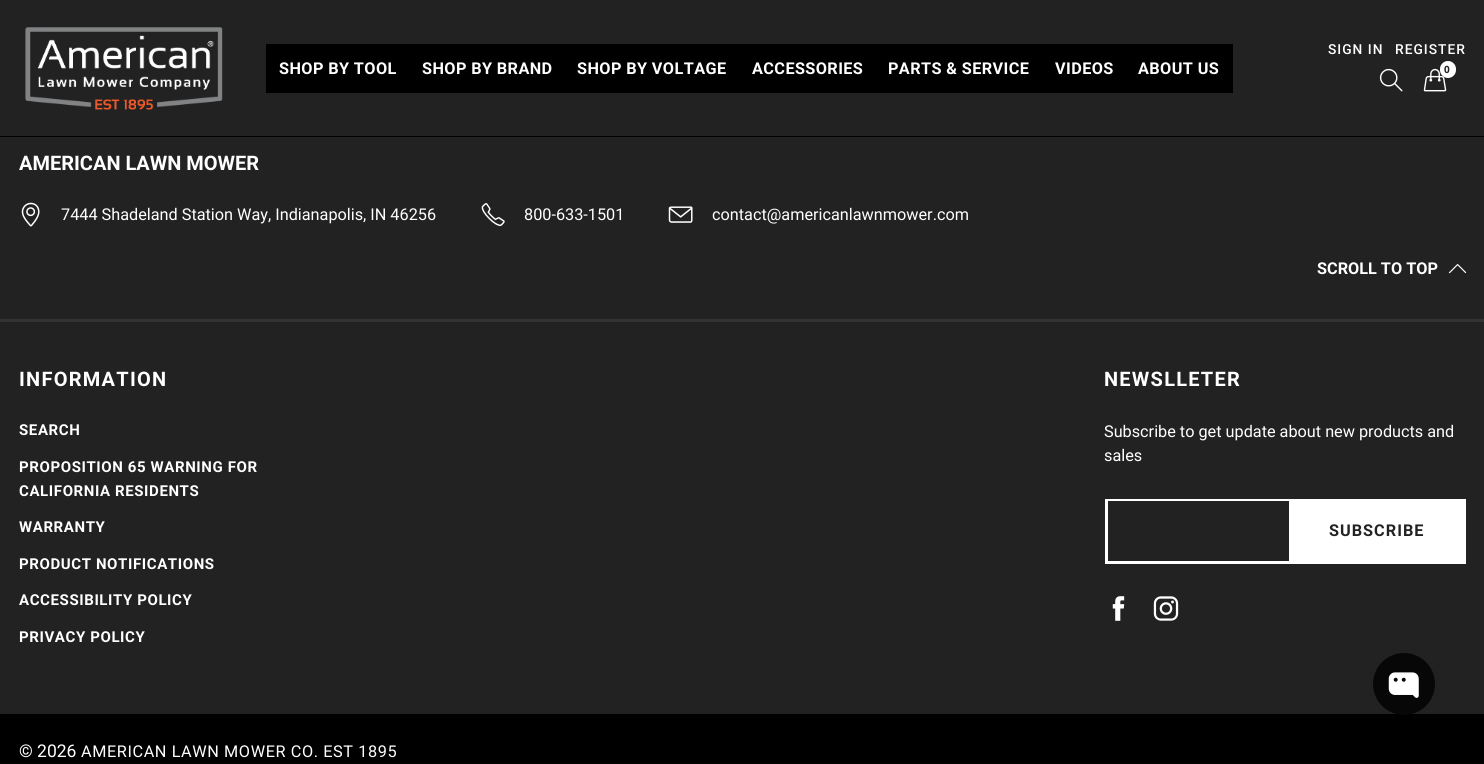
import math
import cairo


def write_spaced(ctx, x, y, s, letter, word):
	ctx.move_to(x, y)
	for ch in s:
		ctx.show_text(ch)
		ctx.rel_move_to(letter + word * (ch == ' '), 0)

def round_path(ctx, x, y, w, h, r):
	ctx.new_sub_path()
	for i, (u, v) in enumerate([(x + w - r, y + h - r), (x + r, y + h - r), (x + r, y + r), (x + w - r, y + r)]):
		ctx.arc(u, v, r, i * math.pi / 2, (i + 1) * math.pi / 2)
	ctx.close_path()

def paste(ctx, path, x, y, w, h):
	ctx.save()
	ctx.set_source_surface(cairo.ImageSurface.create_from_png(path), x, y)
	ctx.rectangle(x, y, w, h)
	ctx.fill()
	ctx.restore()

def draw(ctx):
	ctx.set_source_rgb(0.133, 0.133, 0.133)
	ctx.paint()
	ctx.set_source_rgb(0, 0, 0)
	ctx.rectangle(0, 136, 1484, 1)
	ctx.fill()
	paste(ctx, 'media/1.png', 25, 27, 198, 83)
	ctx.rectangle(266, 44, 967, 49)
	ctx.fill()
	ctx.select_font_face('Roboto', cairo.FONT_SLANT_NORMAL, cairo.FONT_WEIGHT_BOLD)
	ctx.set_font_size(16.25)
	ctx.set_source_rgb(1, 1, 1)
	for x, y, s in [
		(279, 74, 'SHOP BY TOOL'),
		(422, 74, 'SHOP BY BRAND'),
		(577, 74, 'SHOP BY VOLTAGE'),
		(752, 74, 'ACCESSORIES'),
		(888, 74, 'PARTS & SERVICE'),
		(1055, 74, 'VIDEOS'),
		(1138, 74, 'ABOUT US'),
	]:
		write_spaced(ctx, x, y, s, 0.4, 0)
	ctx.select_font_face('Roboto Medium')
	ctx.set_font_size(13.75)
	write_spaced(ctx, 1328, 54, 'SIGN IN', 1, 0)
	write_spaced(ctx, 1395, 54, 'REGISTER', 1, 0)
	paste(ctx, 'media/2.png', 1379, 68, 24, 24)
	paste(ctx, 'media/3.png', 1423, 68, 24, 24)
	round_path(ctx, 1440, 61, 16, 17, 8)
	ctx.fill()
	ctx.select_font_face('Open Sans', cairo.FONT_SLANT_NORMAL, cairo.FONT_WEIGHT_BOLD)
	ctx.set_font_size(10)
	ctx.set_source_rgb(0.133, 0.133, 0.133)
	write_spaced(ctx, 1444, 73, '0', 1, 0)
	ctx.set_source_rgb(0.2, 0.2, 0.2)
	ctx.rectangle(0, 319, 1484, 3)
	ctx.fill()
	ctx.select_font_face('Roboto', cairo.FONT_SLANT_NORMAL, cairo.FONT_WEIGHT_BOLD)
	ctx.set_font_size(20)
	ctx.set_source_rgb(1, 1, 1)
	ctx.move_to(19, 170)
	ctx.show_text('AMERICAN LAWN MOWER')
	paste(ctx, 'media/4.png', 21, 202, 19, 25)
	ctx.select_font_face('Roboto')
	ctx.set_font_size(16.25)
	ctx.move_to(61, 220)
	ctx.show_text('7444 Shadeland Station Way, Indianapolis, IN 46256')
	paste(ctx, 'media/5.png', 481, 203, 24, 24)
	ctx.move_to(524, 220)
	ctx.show_text('800-633-1501')
	paste(ctx, 'media/6.png', 668, 206, 25, 17)
	ctx.move_to(712, 220)
	ctx.show_text('contact@americanlawnmower.com')
	ctx.select_font_face('Roboto', cairo.FONT_SLANT_NORMAL, cairo.FONT_WEIGHT_BOLD)
	ctx.move_to(1317, 274)
	ctx.show_text('SCROLL TO TOP')
	paste(ctx, 'media/7.png', 1448, 264, 19, 10)
	ctx.set_font_size(20)
	write_spaced(ctx, 19, 386, 'INFORMATION', 1.25, 0)
	ctx.set_font_size(15)
	for x, y, s in [
		(19, 435, 'SEARCH'),
		(19, 472, 'PROPOSITION 65 WARNING FOR'),
		(19, 496, 'CALIFORNIA RESIDENTS'),
		(19, 532, 'WARRANTY'),
		(19, 569, 'PRODUCT NOTIFICATIONS'),
		(19, 605, 'ACCESSIBILITY POLICY'),
		(19, 642, 'PRIVACY POLICY'),
	]:
		write_spaced(ctx, x, y, s, 0.6, 0)
	ctx.set_font_size(20)
	write_spaced(ctx, 1104, 386, 'NEWSLLETER', 1.25, 0)
	ctx.select_font_face('Roboto')
	ctx.set_font_size(16.25)
	ctx.move_to(1104, 437)
	ctx.show_text('Subscribe to get update about new products and')
	ctx.move_to(1104, 461)
	ctx.show_text('sales')
	ctx.rectangle(1105, 499, 361, 65)
	ctx.fill()
	ctx.set_source_rgb(0.133, 0.133, 0.133)
	ctx.rectangle(1108, 501, 181, 60)
	ctx.fill()
	ctx.select_font_face('Roboto', cairo.FONT_SLANT_NORMAL, cairo.FONT_WEIGHT_BOLD)
	write_spaced(ctx, 1329, 536, 'SUBSCRIBE', 1, 0)
	paste(ctx, 'media/8.png', 1112, 596, 13, 25)
	paste(ctx, 'media/9.png', 1153, 596, 26, 25)
	ctx.set_source_rgb(0, 0, 0)
	ctx.rectangle(0, 714, 1484, 50)
	ctx.fill()
	ctx.select_font_face('Roboto')
	ctx.set_font_size(17.5)
	ctx.set_source_rgb(1, 1, 1)
	ctx.move_to(19, 757)
	ctx.show_text('© 2026')
	ctx.set_font_size(16.25)
	write_spaced(ctx, 81, 757, 'AMERICAN LAWN MOWER CO. EST 1895', 0.6, 0)
	ctx.set_source_rgb(0.031, 0.031, 0.031)
	ctx.new_path()
	ctx.arc(1404, 684, 31, 0, 2 * math.pi)
	ctx.fill()
	paste(ctx, 'media/10.png', 1388, 672, 31, 26)


surface = cairo.ImageSurface(cairo.FORMAT_RGB24, 1484, 764)
ctx = cairo.Context(surface)
options = cairo.FontOptions()
options.set_hint_metrics(cairo.HINT_METRICS_OFF)
options.set_hint_style(cairo.HINT_STYLE_NONE)
ctx.set_font_options(options)
ctx.set_miter_limit(4)
draw(ctx)
surface.write_to_png('image.png')
